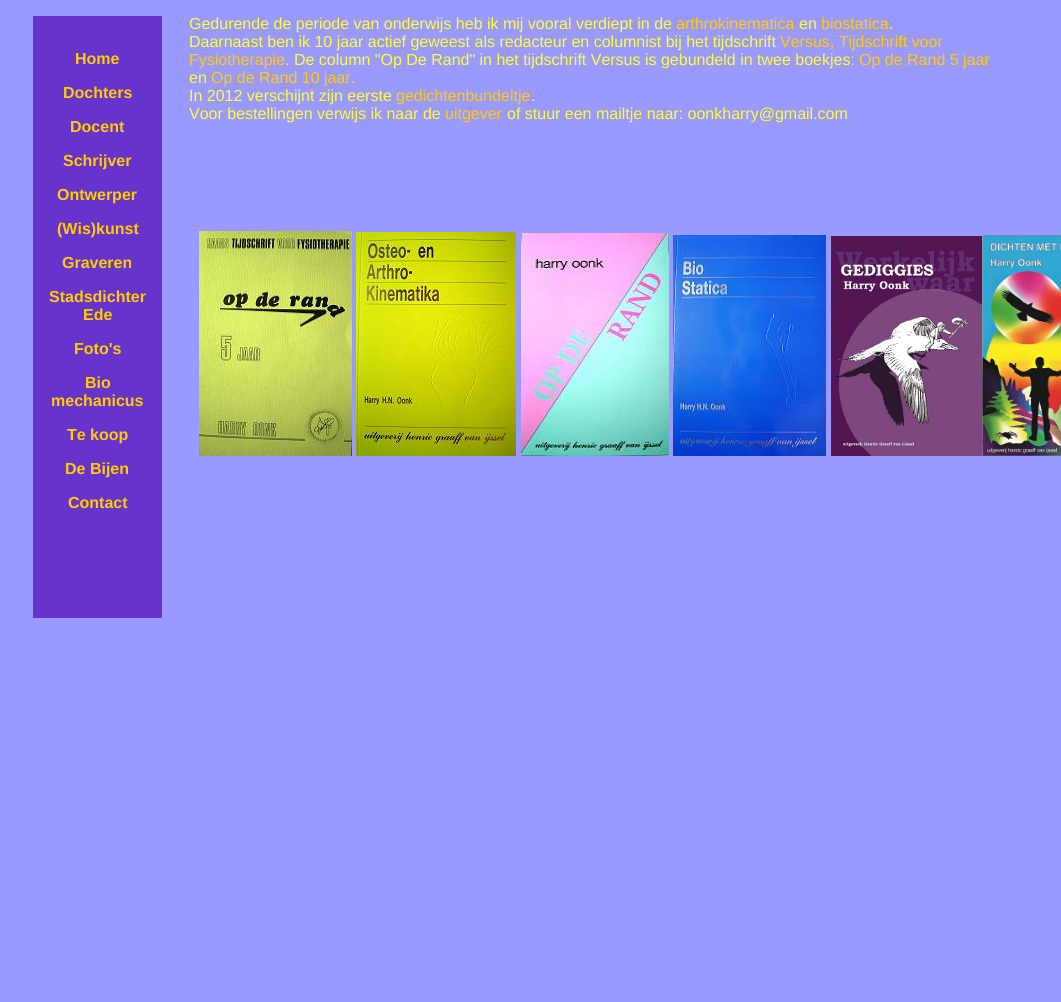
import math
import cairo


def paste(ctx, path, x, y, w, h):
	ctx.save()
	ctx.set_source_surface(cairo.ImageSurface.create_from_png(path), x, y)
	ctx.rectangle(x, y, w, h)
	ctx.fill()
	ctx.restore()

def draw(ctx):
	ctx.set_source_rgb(0.6, 0.6, 1)
	ctx.paint()
	ctx.set_source_rgb(0.4, 0.2, 0.8)
	ctx.rectangle(33, 16, 129, 602)
	ctx.fill()
	ctx.select_font_face('Liberation Sans', cairo.FONT_SLANT_NORMAL, cairo.FONT_WEIGHT_BOLD)
	ctx.set_font_size(16)
	ctx.set_source_rgb(1, 0.8, 0)
	for x, y, s in [
		(75, 64, 'Home'),
		(63, 98, 'Dochters'),
		(70, 132, 'Docent'),
		(63, 166, 'Schrijver'),
		(57, 200, 'Ontwerper'),
		(57, 234, '(Wis)kunst'),
		(62, 268, 'Graveren'),
		(49, 302, 'Stadsdichter'),
		(83, 320, 'Ede'),
		(74, 354, 'Foto\'s'),
		(85, 388, 'Bio'),
		(51, 406, 'mechanicus'),
		(67, 440, 'Te koop'),
		(65, 474, 'De Bijen'),
		(68, 508, 'Contact'),
	]:
		ctx.move_to(x, y)
		ctx.show_text(s)
	ctx.select_font_face('Liberation Sans')
	ctx.set_source_rgb(1, 1, 0.2)
	ctx.move_to(189, 29)
	ctx.show_text('Gedurende de periode van onderwijs heb ik mij vooral verdiept in de')
	ctx.set_source_rgb(1, 0.8, 0)
	ctx.move_to(676, 29)
	ctx.show_text('arthrokinematica')
	ctx.set_source_rgb(1, 1, 0.2)
	ctx.move_to(799, 29)
	ctx.show_text('en')
	ctx.set_source_rgb(1, 0.8, 0)
	ctx.move_to(821, 29)
	ctx.show_text('biostatica')
	ctx.set_source_rgb(1, 1, 0.2)
	ctx.move_to(889, 29)
	ctx.show_text('.')
	ctx.move_to(189, 47)
	ctx.show_text('Daarnaast ben ik 10 jaar actief geweest als redacteur en columnist bij het tijdschrift')
	ctx.set_source_rgb(1, 0.8, 0)
	ctx.move_to(780, 47)
	ctx.show_text('Versus, Tijdschrift voor')
	ctx.move_to(189, 65)
	ctx.show_text('Fysiotherapie')
	ctx.set_source_rgb(1, 1, 0.2)
	ctx.move_to(285, 65)
	ctx.show_text('. De column "Op De Rand" in het tijdschrift Versus is gebundeld in twee boekjes:')
	ctx.set_source_rgb(1, 0.8, 0)
	ctx.move_to(859, 65)
	ctx.show_text('Op de Rand 5 jaar')
	ctx.set_source_rgb(1, 1, 0.2)
	ctx.move_to(189, 83)
	ctx.show_text('en')
	ctx.set_source_rgb(1, 0.8, 0)
	ctx.move_to(211, 83)
	ctx.show_text('Op de Rand 10 jaar.')
	ctx.set_source_rgb(1, 1, 0.2)
	ctx.move_to(189, 101)
	ctx.show_text('In 2012 verschijnt zijn eerste')
	ctx.set_source_rgb(1, 0.8, 0)
	ctx.move_to(396, 101)
	ctx.show_text('gedichtenbundeltje')
	ctx.set_source_rgb(1, 1, 0.2)
	ctx.move_to(531, 101)
	ctx.show_text('.')
	ctx.move_to(189, 119)
	ctx.show_text('Voor bestellingen verwijs ik naar de')
	ctx.set_source_rgb(1, 0.8, 0)
	ctx.move_to(445, 119)
	ctx.show_text('uitgever')
	ctx.set_source_rgb(1, 1, 0.2)
	ctx.move_to(507, 119)
	ctx.show_text('of stuur een mailtje naar: oonkharry@gmail.com')
	paste(ctx, 'media/1.png', 199, 231, 153, 225)
	paste(ctx, 'media/2.png', 356, 232, 160, 224)
	paste(ctx, 'media/3.png', 521, 233, 148, 223)
	paste(ctx, 'media/4.png', 673, 235, 153, 221)
	paste(ctx, 'media/5.png', 831, 236, 151, 220)
	paste(ctx, 'media/6.png', 982, 235, 79, 221)


surface = cairo.ImageSurface(cairo.FORMAT_RGB24, 1061, 1002)
ctx = cairo.Context(surface)
options = cairo.FontOptions()
options.set_hint_metrics(cairo.HINT_METRICS_OFF)
options.set_hint_style(cairo.HINT_STYLE_NONE)
ctx.set_font_options(options)
ctx.set_miter_limit(4)
draw(ctx)
surface.write_to_png('image.png')
